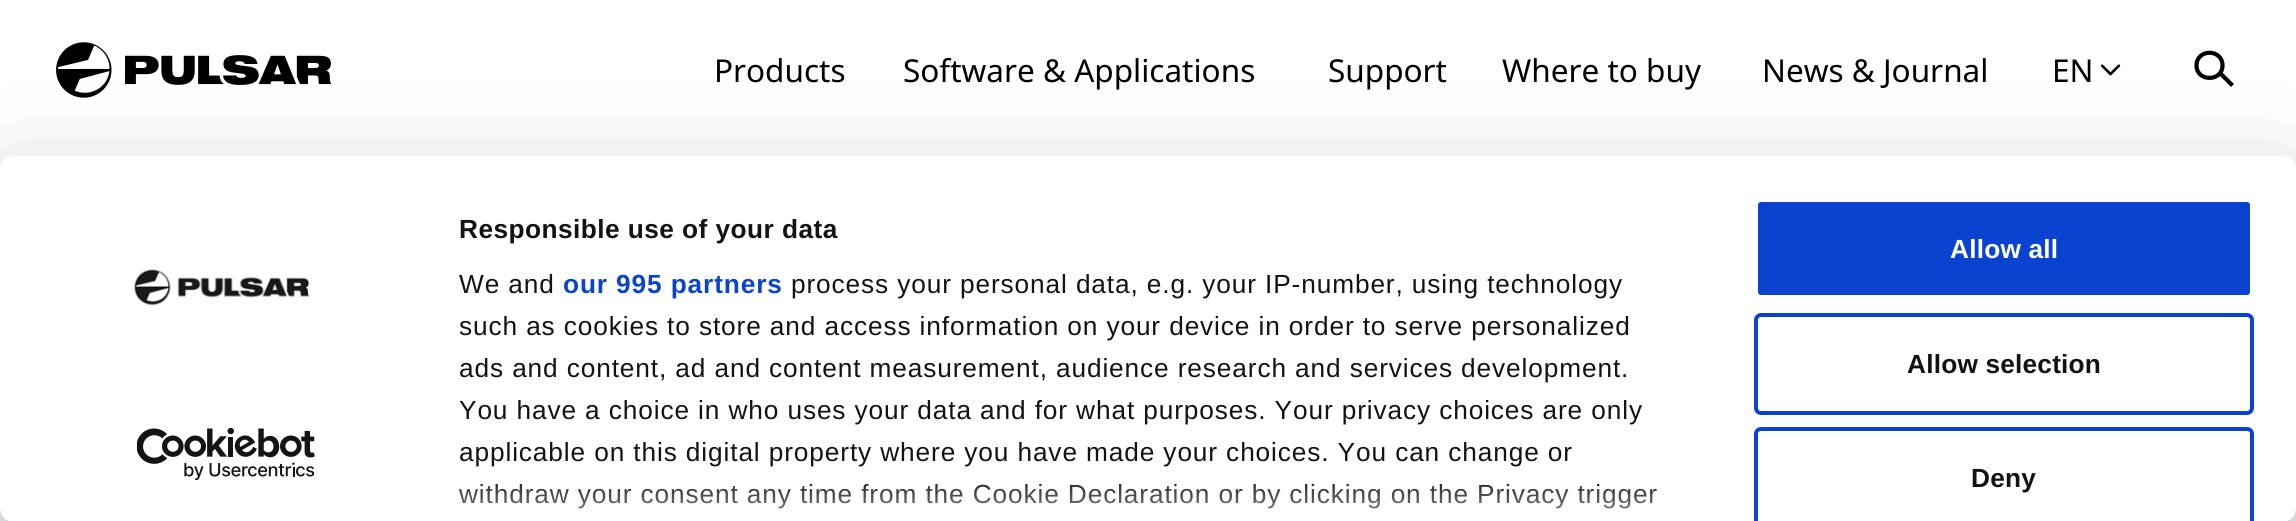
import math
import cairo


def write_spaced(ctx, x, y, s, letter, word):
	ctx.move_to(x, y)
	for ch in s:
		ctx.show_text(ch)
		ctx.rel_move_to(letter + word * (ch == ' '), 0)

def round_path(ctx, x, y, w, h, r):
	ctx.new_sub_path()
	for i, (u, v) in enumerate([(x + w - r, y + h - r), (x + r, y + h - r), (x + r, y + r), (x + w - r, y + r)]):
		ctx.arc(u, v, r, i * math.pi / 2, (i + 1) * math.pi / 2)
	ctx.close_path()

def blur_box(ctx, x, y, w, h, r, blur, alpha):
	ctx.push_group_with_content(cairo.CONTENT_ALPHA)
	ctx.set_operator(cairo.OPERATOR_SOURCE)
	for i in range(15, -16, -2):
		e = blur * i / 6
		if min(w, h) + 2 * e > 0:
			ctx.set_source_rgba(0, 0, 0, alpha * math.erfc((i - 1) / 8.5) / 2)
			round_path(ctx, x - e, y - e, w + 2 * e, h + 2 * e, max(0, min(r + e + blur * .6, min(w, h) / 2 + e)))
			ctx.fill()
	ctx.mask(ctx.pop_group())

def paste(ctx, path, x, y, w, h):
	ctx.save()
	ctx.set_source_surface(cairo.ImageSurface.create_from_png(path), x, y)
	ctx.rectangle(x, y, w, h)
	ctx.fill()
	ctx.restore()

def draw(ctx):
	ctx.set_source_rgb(1, 1, 1)
	ctx.paint()
	paste(ctx, 'media/1.png', 56, 42, 275, 56)
	ctx.select_font_face('Noto Sans')
	ctx.set_font_size(31.5)
	ctx.set_source_rgb(0, 0, 0)
	for x, y, s in [
		(714, 82, 'Products'),
		(903, 82, 'Software & Applications'),
		(1328, 82, 'Support'),
		(1502, 82, 'Where to buy'),
		(1762, 82, 'News & Journal'),
		(2052, 82, 'EN'),
	]:
		ctx.move_to(x, y)
		ctx.show_text(s)
	paste(ctx, 'media/2.png', 2100, 64, 21, 12)
	ctx.new_path()
	ctx.move_to(2222.5, 65.5)
	ctx.curve_to(2222.5, 82, 2196.5, 82, 2196.5, 65.5)
	ctx.curve_to(2196.5, 48.5, 2222.5, 48.5, 2222.5, 65.5)
	ctx.close_path()
	ctx.move_to(2232.5, 85.5)
	ctx.line_to(2220, 73)
	ctx.set_line_width(4.2)
	ctx.stroke()
	ctx.set_source_rgb(0, 0, 0)
	blur_box(ctx, 0, 208, 2296, 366, 14, 61, 0.3)
	ctx.set_source_rgb(1, 1, 1)
	round_path(ctx, 0, 156, 2296, 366, 14)
	ctx.fill()
	paste(ctx, 'media/3.png', 134, 269, 175, 37)
	paste(ctx, 'media/4.png', 137, 427, 178, 53)
	ctx.select_font_face('Liberation Sans', cairo.FONT_SLANT_NORMAL, cairo.FONT_WEIGHT_BOLD)
	ctx.set_font_size(26.25)
	ctx.set_source_rgb(0.078, 0.078, 0.078)
	write_spaced(ctx, 459, 238, 'Responsible use of your data', 0.45, 0)
	ctx.select_font_face('Liberation Sans')
	write_spaced(ctx, 459, 293, 'We and', 0.88, 0)
	ctx.select_font_face('Liberation Sans', cairo.FONT_SLANT_NORMAL, cairo.FONT_WEIGHT_BOLD)
	ctx.set_source_rgb(0.043, 0.263, 0.82)
	write_spaced(ctx, 563, 293, 'our 995 partners', 0.88, 0)
	ctx.select_font_face('Liberation Sans')
	ctx.set_source_rgb(0.078, 0.078, 0.078)
	for x, y, s in [
		(791, 293, 'process your personal data, e.g. your IP-number, using technology'),
		(459, 335, 'such as cookies to store and access information on your device in order to serve personalized'),
		(459, 377, 'ads and content, ad and content measurement, audience research and services development.'),
		(459, 419, 'You have a choice in who uses your data and for what purposes. Your privacy choices are only'),
		(459, 461, 'applicable on this digital property where you have made your choices. You can change or'),
		(459, 503, 'withdraw your consent any time from the Cookie Declaration or by clicking on the Privacy trigger'),
	]:
		write_spaced(ctx, x, y, s, 0.88, 0)
	gradient = cairo.LinearGradient(1064, 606, 1064, 475)
	gradient.add_color_stop_rgba(0, 1, 1, 1, 1)
	gradient.add_color_stop_rgba(0.5, 1, 1, 1, 0.8)
	gradient.add_color_stop_rgba(1, 1, 1, 1, 0)
	ctx.set_source(gradient)
	ctx.rectangle(458, 484, 1198, 25)
	ctx.fill()
	ctx.set_source_rgb(0.043, 0.263, 0.82)
	round_path(ctx, 1756, 200, 496, 97, 5)
	ctx.fill_preserve()
	ctx.set_source_rgb(1, 1, 1)
	ctx.set_line_width(4)
	ctx.stroke()
	ctx.select_font_face('Liberation Sans', cairo.FONT_SLANT_NORMAL, cairo.FONT_WEIGHT_BOLD)
	write_spaced(ctx, 1950, 258, 'Allow all', 0.2, 0)
	round_path(ctx, 1756, 315, 496, 98, 5)
	ctx.set_source_rgb(0.043, 0.263, 0.82)
	ctx.stroke()
	ctx.set_source_rgb(0.078, 0.078, 0.078)
	write_spaced(ctx, 1907, 373, 'Allow selection', 0.2, 0)
	ctx.set_source_rgb(0.043, 0.263, 0.82)
	ctx.new_path()
	ctx.move_to(1761, 427)
	ctx.curve_to(1757, 427, 1754, 430, 1754, 434)
	ctx.line_to(1754, 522)
	ctx.line_to(1758, 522)
	ctx.line_to(1758, 434)
	ctx.curve_to(1758, 432, 1759, 431, 1761, 431)
	ctx.line_to(2247, 431)
	ctx.curve_to(2249, 431, 2250, 432, 2250, 434)
	ctx.line_to(2250, 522)
	ctx.line_to(2254, 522)
	ctx.line_to(2254, 434)
	ctx.curve_to(2254, 430, 2251, 427, 2247, 427)
	ctx.close_path()
	ctx.fill()
	ctx.set_source_rgb(0.078, 0.078, 0.078)
	write_spaced(ctx, 1971, 487, 'Deny', 0.2, 0)


surface = cairo.ImageSurface(cairo.FORMAT_RGB24, 2296, 521)
ctx = cairo.Context(surface)
options = cairo.FontOptions()
options.set_hint_metrics(cairo.HINT_METRICS_OFF)
options.set_hint_style(cairo.HINT_STYLE_NONE)
ctx.set_font_options(options)
ctx.set_miter_limit(4)
draw(ctx)
surface.write_to_png('image.png')
